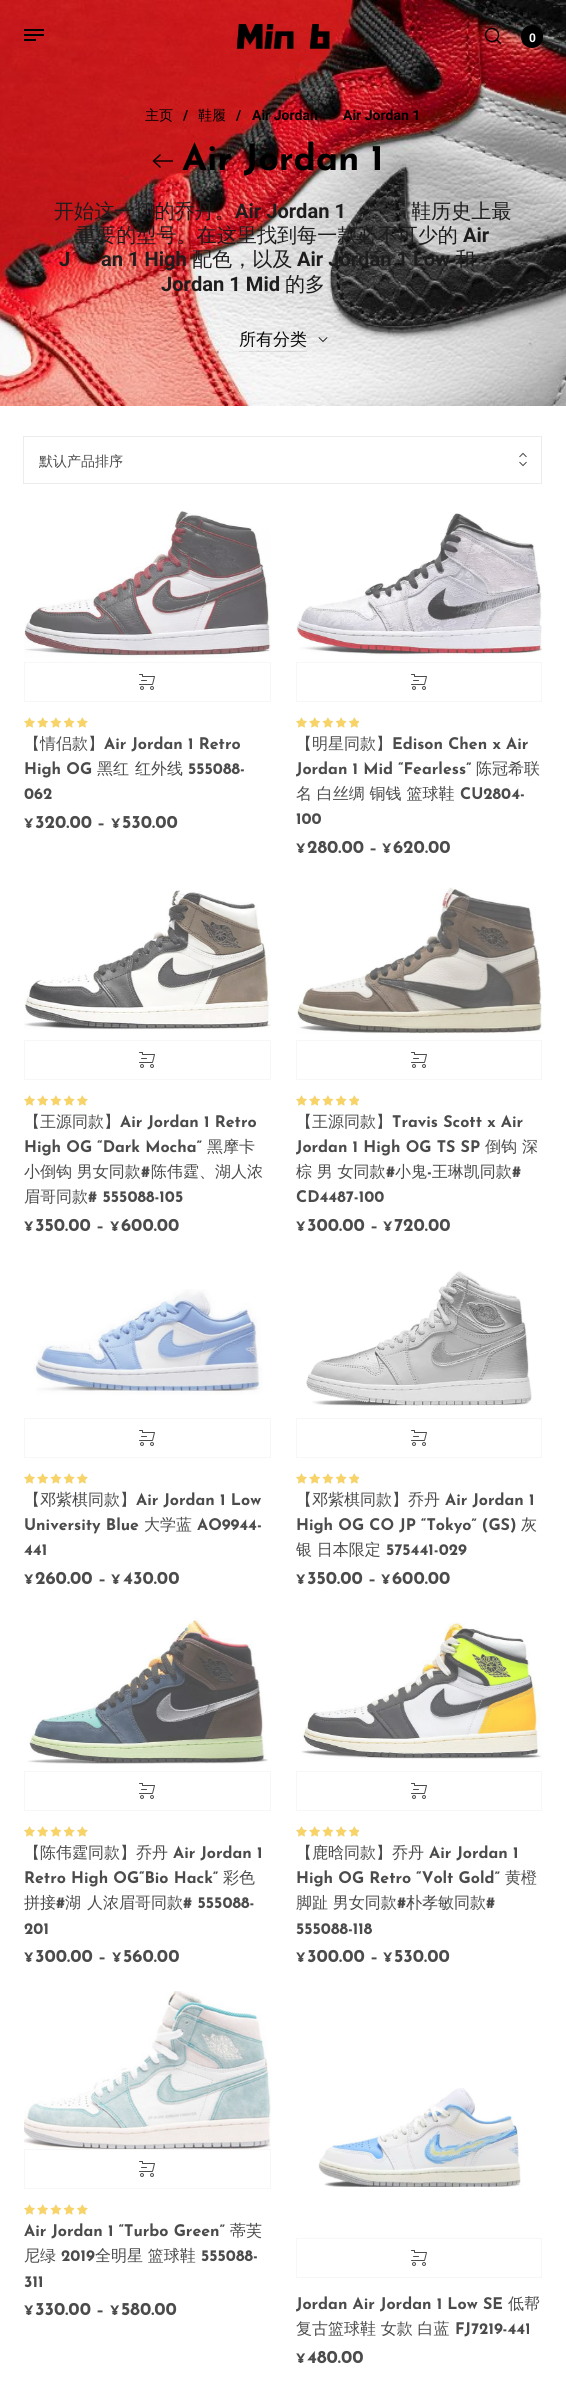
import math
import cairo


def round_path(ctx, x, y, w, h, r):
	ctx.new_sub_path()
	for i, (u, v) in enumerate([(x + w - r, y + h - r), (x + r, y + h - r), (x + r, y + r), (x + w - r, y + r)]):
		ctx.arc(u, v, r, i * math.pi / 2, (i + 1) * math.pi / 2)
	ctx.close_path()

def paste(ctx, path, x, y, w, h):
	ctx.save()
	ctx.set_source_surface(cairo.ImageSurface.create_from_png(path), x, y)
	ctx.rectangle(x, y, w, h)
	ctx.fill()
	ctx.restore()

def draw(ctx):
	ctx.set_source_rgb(1, 1, 1)
	ctx.paint()
	paste(ctx, 'media/2.png', 0, 0, 566, 406)
	ctx.set_source_rgb(0, 0, 0)
	ctx.rectangle(24, 29, 20, 2)
	ctx.rectangle(24, 34, 20, 2)
	ctx.rectangle(24, 39, 12, 2)
	ctx.fill()
	paste(ctx, 'media/1.png', 236, 24, 94, 25)
	ctx.new_path()
	ctx.move_to(500.5, 43.5)
	ctx.line_to(496.5, 39.5)
	ctx.set_line_width(1.4)
	ctx.set_line_cap(cairo.LINE_CAP_SQUARE)
	ctx.stroke()
	ctx.save()
	ctx.rectangle(485, 28, 17, 17)
	ctx.clip()
	ctx.arc(492, 35, 6.5, 0, 2 * math.pi)
	ctx.set_line_cap(cairo.LINE_CAP_BUTT)
	ctx.stroke()
	ctx.restore()
	round_path(ctx, 521, 25, 22, 23, 11)
	ctx.fill()
	ctx.select_font_face('Roboto', cairo.FONT_SLANT_NORMAL, cairo.FONT_WEIGHT_BOLD)
	ctx.set_font_size(12)
	ctx.set_source_rgb(1, 1, 1)
	ctx.move_to(529, 42)
	ctx.show_text('0')
	ctx.select_font_face('WenQuanYi Zen Hei Medium')
	ctx.set_font_size(14)
	ctx.set_source_rgb(0, 0, 0)
	ctx.move_to(145, 120)
	ctx.show_text('主页')
	ctx.select_font_face('Roboto', cairo.FONT_SLANT_NORMAL, cairo.FONT_WEIGHT_BOLD)
	ctx.move_to(183, 120)
	ctx.show_text('/')
	ctx.select_font_face('WenQuanYi Zen Hei Medium')
	ctx.move_to(198, 120)
	ctx.show_text('鞋履')
	ctx.select_font_face('Roboto', cairo.FONT_SLANT_NORMAL, cairo.FONT_WEIGHT_BOLD)
	for x, y, s in [
		(236, 120, '/'),
		(252, 120, 'Air Jordan'),
		(343, 120, 'Air Jordan 1'),
	]:
		ctx.move_to(x, y)
		ctx.show_text(s)
	ctx.new_path()
	ctx.move_to(173, 161)
	ctx.line_to(153.5, 161)
	ctx.set_source_rgba(0, 0, 0, 0.99)
	ctx.set_line_cap(cairo.LINE_CAP_BUTT)
	ctx.stroke()
	ctx.new_path()
	ctx.move_to(160, 167)
	ctx.line_to(153.5, 161)
	ctx.line_to(160, 155)
	ctx.set_line_cap(cairo.LINE_CAP_SQUARE)
	ctx.stroke()
	ctx.select_font_face('Josefin Sans', cairo.FONT_SLANT_NORMAL, cairo.FONT_WEIGHT_BOLD)
	ctx.set_font_size(36)
	ctx.set_source_rgb(0, 0, 0)
	ctx.move_to(182, 170)
	ctx.show_text('Air Jordan 1')
	ctx.select_font_face('WenQuanYi Zen Hei Medium')
	ctx.set_font_size(20.1)
	ctx.set_source_rgb(0.118, 0.11, 0.11)
	ctx.move_to(54, 218)
	ctx.show_text('开始这一切的乔丹。')
	ctx.select_font_face('Roboto', cairo.FONT_SLANT_NORMAL, cairo.FONT_WEIGHT_BOLD)
	ctx.move_to(235, 218)
	ctx.show_text('Air Jordan 1')
	ctx.select_font_face('WenQuanYi Zen Hei Medium')
	ctx.move_to(411, 218)
	ctx.show_text('鞋历史上最')
	ctx.move_to(76, 242)
	ctx.show_text('重要的型号。在这里找到每一款必不可少的')
	ctx.select_font_face('Roboto', cairo.FONT_SLANT_NORMAL, cairo.FONT_WEIGHT_BOLD)
	for x, y, s in [
		(463, 242, 'Air'),
		(59, 266, 'J'),
		(101, 266, 'an 1 High'),
	]:
		ctx.move_to(x, y)
		ctx.show_text(s)
	ctx.select_font_face('WenQuanYi Zen Hei Medium')
	ctx.move_to(192, 266)
	ctx.show_text('配色，以及')
	ctx.select_font_face('Roboto', cairo.FONT_SLANT_NORMAL, cairo.FONT_WEIGHT_BOLD)
	ctx.move_to(297, 266)
	ctx.show_text('Air Jordan 1 Low')
	ctx.select_font_face('WenQuanYi Zen Hei Medium')
	ctx.move_to(455, 266)
	ctx.show_text('和')
	ctx.select_font_face('Roboto', cairo.FONT_SLANT_NORMAL, cairo.FONT_WEIGHT_BOLD)
	ctx.move_to(161, 291)
	ctx.show_text('Jordan 1 Mid')
	ctx.select_font_face('WenQuanYi Zen Hei Medium')
	ctx.move_to(285, 291)
	ctx.show_text('的多')
	ctx.set_font_size(17)
	ctx.set_source_rgb(0.024, 0.024, 0.024)
	ctx.move_to(239, 345)
	ctx.show_text('所有分类')
	ctx.set_source_rgba(0, 0, 0, 0.1)
	ctx.rectangle(239, 351, 68, 1)
	ctx.fill()
	paste(ctx, 'media/3.png', 318, 337, 10, 5)
	ctx.rectangle(23.5, 436.5, 518, 47)
	ctx.set_source_rgb(0.925, 0.925, 0.925)
	ctx.set_line_width(1)
	ctx.set_line_cap(cairo.LINE_CAP_BUTT)
	ctx.stroke()
	ctx.set_font_size(14)
	ctx.set_source_rgb(0.294, 0.294, 0.294)
	ctx.move_to(39, 466)
	ctx.show_text('默认产品排序')
	paste(ctx, 'media/4.png', 519, 452, 8, 6)
	paste(ctx, 'media/5.png', 519, 461, 8, 6)
	paste(ctx, 'media/6.png', 24, 511, 247, 147)
	ctx.rectangle(24.5, 662.5, 246, 39)
	ctx.set_source_rgb(0.965, 0.965, 0.965)
	ctx.stroke()
	paste(ctx, 'media/7.png', 139, 674, 16, 16)
	paste(ctx, 'media/8.png', 24, 717, 64, 11)
	paste(ctx, 'media/9.png', 24, 717, 64, 11)
	ctx.set_font_size(16)
	ctx.set_source_rgb(0.294, 0.294, 0.294)
	ctx.move_to(24, 749)
	ctx.show_text('【情侣款】')
	ctx.select_font_face('Josefin Sans', cairo.FONT_SLANT_NORMAL, cairo.FONT_WEIGHT_BOLD)
	ctx.move_to(104, 749)
	ctx.show_text('Air Jordan 1 Retro')
	ctx.move_to(24, 774)
	ctx.show_text('High OG')
	ctx.select_font_face('WenQuanYi Zen Hei Medium')
	ctx.move_to(97, 774)
	ctx.show_text('黑红')
	ctx.move_to(135, 774)
	ctx.show_text('红外线')
	ctx.select_font_face('Josefin Sans', cairo.FONT_SLANT_NORMAL, cairo.FONT_WEIGHT_BOLD)
	ctx.move_to(188, 774)
	ctx.show_text('555088-')
	ctx.move_to(24, 799)
	ctx.show_text('062')
	ctx.set_font_size(13)
	ctx.move_to(24, 828)
	ctx.show_text('¥')
	ctx.set_font_size(18)
	ctx.move_to(35, 828)
	ctx.show_text('320.00')
	ctx.set_font_size(16)
	ctx.move_to(97, 828)
	ctx.show_text('–')
	ctx.set_font_size(13)
	ctx.move_to(111, 828)
	ctx.show_text('¥')
	ctx.set_font_size(18)
	ctx.move_to(122, 828)
	ctx.show_text('530.00')
	paste(ctx, 'media/10.png', 296, 513, 246, 144)
	ctx.rectangle(296.5, 662.5, 245, 39)
	ctx.set_source_rgb(0.965, 0.965, 0.965)
	ctx.stroke()
	paste(ctx, 'media/7.png', 411, 674, 16, 16)
	paste(ctx, 'media/11.png', 296, 717, 63, 11)
	paste(ctx, 'media/12.png', 296, 717, 63, 11)
	ctx.select_font_face('WenQuanYi Zen Hei Medium')
	ctx.set_font_size(16)
	ctx.set_source_rgb(0.294, 0.294, 0.294)
	ctx.move_to(296, 749)
	ctx.show_text('【明星同款】')
	ctx.select_font_face('Josefin Sans', cairo.FONT_SLANT_NORMAL, cairo.FONT_WEIGHT_BOLD)
	ctx.move_to(392, 749)
	ctx.show_text('Edison Chen x Air')
	ctx.move_to(296, 774)
	ctx.show_text('Jordan 1 Mid “Fearless”')
	ctx.select_font_face('WenQuanYi Zen Hei Medium')
	ctx.move_to(476, 774)
	ctx.show_text('陈冠希联')
	ctx.move_to(296, 799)
	ctx.show_text('名 白丝绸 铜钱 篮球鞋')
	ctx.select_font_face('Josefin Sans', cairo.FONT_SLANT_NORMAL, cairo.FONT_WEIGHT_BOLD)
	ctx.move_to(460, 799)
	ctx.show_text('CU2804-')
	ctx.move_to(296, 824)
	ctx.show_text('100')
	ctx.set_font_size(13)
	ctx.move_to(296, 853)
	ctx.show_text('¥')
	ctx.set_font_size(18)
	ctx.move_to(307, 853)
	ctx.show_text('280.00')
	ctx.set_font_size(16)
	ctx.move_to(369, 853)
	ctx.show_text('–')
	ctx.set_font_size(13)
	ctx.move_to(382, 853)
	ctx.show_text('¥')
	ctx.set_font_size(18)
	ctx.move_to(393, 853)
	ctx.show_text('620.00')
	paste(ctx, 'media/13.png', 24, 889, 247, 141)
	ctx.rectangle(24.5, 1040.5, 246, 39)
	ctx.set_source_rgb(0.965, 0.965, 0.965)
	ctx.stroke()
	paste(ctx, 'media/7.png', 139, 1052, 16, 16)
	paste(ctx, 'media/8.png', 24, 1095, 64, 11)
	paste(ctx, 'media/9.png', 24, 1095, 64, 11)
	ctx.select_font_face('WenQuanYi Zen Hei Medium')
	ctx.set_font_size(16)
	ctx.set_source_rgb(0.294, 0.294, 0.294)
	ctx.move_to(24, 1127)
	ctx.show_text('【王源同款】')
	ctx.select_font_face('Josefin Sans', cairo.FONT_SLANT_NORMAL, cairo.FONT_WEIGHT_BOLD)
	ctx.move_to(120, 1127)
	ctx.show_text('Air Jordan 1 Retro')
	ctx.move_to(24, 1152)
	ctx.show_text('High OG “Dark Mocha”')
	ctx.select_font_face('WenQuanYi Zen Hei Medium')
	ctx.move_to(207, 1152)
	ctx.show_text('黑摩卡')
	ctx.move_to(24, 1177)
	ctx.show_text('小倒钩 男女同款')
	ctx.select_font_face('Josefin Sans', cairo.FONT_SLANT_NORMAL, cairo.FONT_WEIGHT_BOLD)
	ctx.move_to(141, 1177)
	ctx.show_text('#')
	ctx.select_font_face('WenQuanYi Zen Hei Medium')
	ctx.move_to(151, 1177)
	ctx.show_text('陈伟霆、湖人浓')
	ctx.move_to(24, 1202)
	ctx.show_text('眉哥同款')
	ctx.select_font_face('Josefin Sans', cairo.FONT_SLANT_NORMAL, cairo.FONT_WEIGHT_BOLD)
	ctx.move_to(88, 1202)
	ctx.show_text('# 555088-105')
	ctx.set_font_size(13)
	ctx.move_to(24, 1231)
	ctx.show_text('¥')
	ctx.set_font_size(18)
	ctx.move_to(35, 1231)
	ctx.show_text('350.00')
	ctx.set_font_size(16)
	ctx.move_to(96, 1231)
	ctx.show_text('–')
	ctx.set_font_size(13)
	ctx.move_to(110, 1231)
	ctx.show_text('¥')
	ctx.set_font_size(18)
	ctx.move_to(121, 1231)
	ctx.show_text('600.00')
	paste(ctx, 'media/14.png', 297, 887, 245, 147)
	ctx.rectangle(296.5, 1040.5, 245, 39)
	ctx.set_source_rgb(0.965, 0.965, 0.965)
	ctx.stroke()
	paste(ctx, 'media/7.png', 411, 1052, 16, 16)
	paste(ctx, 'media/11.png', 296, 1095, 63, 11)
	paste(ctx, 'media/12.png', 296, 1095, 63, 11)
	ctx.select_font_face('WenQuanYi Zen Hei Medium')
	ctx.set_font_size(16)
	ctx.set_source_rgb(0.294, 0.294, 0.294)
	ctx.move_to(296, 1127)
	ctx.show_text('【王源同款】')
	ctx.select_font_face('Josefin Sans', cairo.FONT_SLANT_NORMAL, cairo.FONT_WEIGHT_BOLD)
	ctx.move_to(392, 1127)
	ctx.show_text('Travis Scott x Air')
	ctx.move_to(296, 1152)
	ctx.show_text('Jordan 1 High OG TS SP')
	ctx.select_font_face('WenQuanYi Zen Hei Medium')
	for x, y, s in [
		(485, 1152, '倒钩'),
		(522, 1152, '深'),
		(296, 1177, '棕 男 女同款'),
	]:
		ctx.move_to(x, y)
		ctx.show_text(s)
	ctx.select_font_face('Josefin Sans', cairo.FONT_SLANT_NORMAL, cairo.FONT_WEIGHT_BOLD)
	ctx.move_to(386, 1177)
	ctx.show_text('#')
	ctx.select_font_face('WenQuanYi Zen Hei Medium')
	ctx.move_to(395, 1177)
	ctx.show_text('小鬼 王琳凯同款')
	ctx.select_font_face('Josefin Sans', cairo.FONT_SLANT_NORMAL, cairo.FONT_WEIGHT_BOLD)
	for x, y, s in [
		(512, 1177, '#'),
		(427, 1177, '-'),
		(296, 1202, 'CD4487-100'),
	]:
		ctx.move_to(x, y)
		ctx.show_text(s)
	ctx.set_font_size(13)
	ctx.move_to(296, 1231)
	ctx.show_text('¥')
	ctx.set_font_size(18)
	ctx.move_to(307, 1231)
	ctx.show_text('300.00')
	ctx.set_font_size(16)
	ctx.move_to(370, 1231)
	ctx.show_text('–')
	ctx.set_font_size(13)
	ctx.move_to(383, 1231)
	ctx.show_text('¥')
	ctx.set_font_size(18)
	ctx.move_to(394, 1231)
	ctx.show_text('720.00')
	paste(ctx, 'media/15.png', 33, 1289, 230, 106)
	ctx.rectangle(24.5, 1418.5, 246, 39)
	ctx.set_source_rgb(0.965, 0.965, 0.965)
	ctx.stroke()
	paste(ctx, 'media/7.png', 139, 1430, 16, 16)
	paste(ctx, 'media/8.png', 24, 1473, 64, 11)
	paste(ctx, 'media/9.png', 24, 1473, 64, 11)
	ctx.select_font_face('WenQuanYi Zen Hei Medium')
	ctx.set_font_size(16)
	ctx.set_source_rgb(0.294, 0.294, 0.294)
	ctx.move_to(24, 1505)
	ctx.show_text('【邓紫棋同款】')
	ctx.select_font_face('Josefin Sans', cairo.FONT_SLANT_NORMAL, cairo.FONT_WEIGHT_BOLD)
	ctx.move_to(136, 1505)
	ctx.show_text('Air Jordan 1 Low')
	ctx.move_to(24, 1530)
	ctx.show_text('University Blue')
	ctx.select_font_face('WenQuanYi Zen Hei Medium')
	ctx.move_to(144, 1530)
	ctx.show_text('大学蓝')
	ctx.select_font_face('Josefin Sans', cairo.FONT_SLANT_NORMAL, cairo.FONT_WEIGHT_BOLD)
	ctx.move_to(197, 1530)
	ctx.show_text('AO9944-')
	ctx.move_to(24, 1555)
	ctx.show_text('441')
	ctx.set_font_size(13)
	ctx.move_to(24, 1584)
	ctx.show_text('¥')
	ctx.set_font_size(18)
	ctx.move_to(35, 1584)
	ctx.show_text('260.00')
	ctx.set_font_size(16)
	ctx.move_to(98, 1584)
	ctx.show_text('–')
	ctx.set_font_size(13)
	ctx.move_to(111, 1584)
	ctx.show_text('¥')
	ctx.set_font_size(18)
	ctx.move_to(123, 1584)
	ctx.show_text('430.00')
	paste(ctx, 'media/16.png', 306, 1271, 226, 135)
	ctx.rectangle(296.5, 1418.5, 245, 39)
	ctx.set_source_rgb(0.965, 0.965, 0.965)
	ctx.stroke()
	paste(ctx, 'media/7.png', 411, 1430, 16, 16)
	paste(ctx, 'media/11.png', 296, 1473, 63, 11)
	paste(ctx, 'media/12.png', 296, 1473, 63, 11)
	ctx.select_font_face('WenQuanYi Zen Hei Medium')
	ctx.set_font_size(16)
	ctx.set_source_rgb(0.294, 0.294, 0.294)
	ctx.move_to(296, 1505)
	ctx.show_text('【邓紫棋同款】乔丹')
	ctx.select_font_face('Josefin Sans', cairo.FONT_SLANT_NORMAL, cairo.FONT_WEIGHT_BOLD)
	ctx.move_to(445, 1505)
	ctx.show_text('Air Jordan 1')
	ctx.move_to(296, 1530)
	ctx.show_text('High OG CO JP “Tokyo” (GS)')
	ctx.select_font_face('WenQuanYi Zen Hei Medium')
	ctx.move_to(521, 1530)
	ctx.show_text('灰')
	ctx.move_to(296, 1555)
	ctx.show_text('银 日本限定')
	ctx.select_font_face('Josefin Sans', cairo.FONT_SLANT_NORMAL, cairo.FONT_WEIGHT_BOLD)
	ctx.move_to(386, 1555)
	ctx.show_text('575441-029')
	ctx.set_font_size(13)
	ctx.move_to(296, 1584)
	ctx.show_text('¥')
	ctx.set_font_size(18)
	ctx.move_to(307, 1584)
	ctx.show_text('350.00')
	ctx.set_font_size(16)
	ctx.move_to(368, 1584)
	ctx.show_text('–')
	ctx.set_font_size(13)
	ctx.move_to(381, 1584)
	ctx.show_text('¥')
	ctx.set_font_size(18)
	ctx.move_to(392, 1584)
	ctx.show_text('600.00')
	paste(ctx, 'media/17.png', 27, 1617, 241, 147)
	ctx.rectangle(24.5, 1771.5, 246, 39)
	ctx.set_source_rgb(0.965, 0.965, 0.965)
	ctx.stroke()
	paste(ctx, 'media/7.png', 139, 1783, 16, 16)
	paste(ctx, 'media/8.png', 24, 1826, 64, 11)
	paste(ctx, 'media/9.png', 24, 1826, 64, 11)
	ctx.select_font_face('WenQuanYi Zen Hei Medium')
	ctx.set_font_size(16)
	ctx.set_source_rgb(0.294, 0.294, 0.294)
	ctx.move_to(24, 1858)
	ctx.show_text('【陈伟霆同款】乔丹')
	ctx.select_font_face('Josefin Sans', cairo.FONT_SLANT_NORMAL, cairo.FONT_WEIGHT_BOLD)
	ctx.move_to(173, 1858)
	ctx.show_text('Air Jordan 1')
	ctx.move_to(24, 1883)
	ctx.show_text('Retro High OG“Bio Hack”')
	ctx.select_font_face('WenQuanYi Zen Hei Medium')
	ctx.move_to(223, 1883)
	ctx.show_text('彩色')
	ctx.move_to(24, 1908)
	ctx.show_text('拼接')
	ctx.select_font_face('Josefin Sans', cairo.FONT_SLANT_NORMAL, cairo.FONT_WEIGHT_BOLD)
	ctx.move_to(56, 1908)
	ctx.show_text('#')
	ctx.select_font_face('WenQuanYi Zen Hei Medium')
	ctx.move_to(65, 1908)
	ctx.show_text('湖')
	ctx.move_to(87, 1908)
	ctx.show_text('人浓眉哥同款')
	ctx.select_font_face('Josefin Sans', cairo.FONT_SLANT_NORMAL, cairo.FONT_WEIGHT_BOLD)
	ctx.move_to(183, 1908)
	ctx.show_text('# 555088-')
	ctx.move_to(24, 1934)
	ctx.show_text('201')
	ctx.set_font_size(13)
	ctx.move_to(24, 1962)
	ctx.show_text('¥')
	ctx.set_font_size(18)
	ctx.move_to(35, 1962)
	ctx.show_text('300.00')
	ctx.set_font_size(16)
	ctx.move_to(98, 1962)
	ctx.show_text('–')
	ctx.set_font_size(13)
	ctx.move_to(112, 1962)
	ctx.show_text('¥')
	ctx.set_font_size(18)
	ctx.move_to(123, 1962)
	ctx.show_text('560.00')
	paste(ctx, 'media/18.png', 301, 1622, 241, 137)
	ctx.rectangle(296.5, 1771.5, 245, 39)
	ctx.set_source_rgb(0.965, 0.965, 0.965)
	ctx.stroke()
	paste(ctx, 'media/7.png', 411, 1783, 16, 16)
	paste(ctx, 'media/11.png', 296, 1826, 63, 11)
	paste(ctx, 'media/12.png', 296, 1826, 63, 11)
	ctx.select_font_face('WenQuanYi Zen Hei Medium')
	ctx.set_font_size(16)
	ctx.set_source_rgb(0.294, 0.294, 0.294)
	ctx.move_to(296, 1858)
	ctx.show_text('【鹿晗同款】乔丹')
	ctx.select_font_face('Josefin Sans', cairo.FONT_SLANT_NORMAL, cairo.FONT_WEIGHT_BOLD)
	ctx.move_to(429, 1858)
	ctx.show_text('Air Jordan 1')
	ctx.move_to(296, 1883)
	ctx.show_text('High OG Retro “Volt Gold”')
	ctx.select_font_face('WenQuanYi Zen Hei Medium')
	ctx.move_to(505, 1883)
	ctx.show_text('黄橙')
	ctx.move_to(296, 1908)
	ctx.show_text('脚趾 男女同款')
	ctx.select_font_face('Josefin Sans', cairo.FONT_SLANT_NORMAL, cairo.FONT_WEIGHT_BOLD)
	ctx.move_to(397, 1908)
	ctx.show_text('#')
	ctx.select_font_face('WenQuanYi Zen Hei Medium')
	ctx.move_to(406, 1908)
	ctx.show_text('朴孝敏同款')
	ctx.select_font_face('Josefin Sans', cairo.FONT_SLANT_NORMAL, cairo.FONT_WEIGHT_BOLD)
	ctx.move_to(486, 1908)
	ctx.show_text('#')
	ctx.move_to(296, 1934)
	ctx.show_text('555088-118')
	ctx.set_font_size(13)
	ctx.move_to(296, 1962)
	ctx.show_text('¥')
	ctx.set_font_size(18)
	ctx.move_to(307, 1962)
	ctx.show_text('300.00')
	ctx.set_font_size(16)
	ctx.move_to(370, 1962)
	ctx.show_text('–')
	ctx.set_font_size(13)
	ctx.move_to(383, 1962)
	ctx.show_text('¥')
	ctx.set_font_size(18)
	ctx.move_to(394, 1962)
	ctx.show_text('530.00')
	paste(ctx, 'media/19.png', 24, 1991, 247, 158)
	ctx.rectangle(24.5, 2149.5, 246, 39)
	ctx.set_source_rgb(0.965, 0.965, 0.965)
	ctx.stroke()
	paste(ctx, 'media/7.png', 139, 2161, 16, 16)
	paste(ctx, 'media/8.png', 24, 2204, 64, 11)
	paste(ctx, 'media/9.png', 24, 2204, 64, 11)
	ctx.set_font_size(16)
	ctx.set_source_rgb(0.294, 0.294, 0.294)
	ctx.move_to(24, 2236)
	ctx.show_text('Air Jordan 1 “Turbo Green”')
	ctx.select_font_face('WenQuanYi Zen Hei Medium')
	ctx.move_to(230, 2236)
	ctx.show_text('蒂芙')
	ctx.move_to(24, 2261)
	ctx.show_text('尼绿')
	ctx.select_font_face('Josefin Sans', cairo.FONT_SLANT_NORMAL, cairo.FONT_WEIGHT_BOLD)
	ctx.move_to(61, 2261)
	ctx.show_text('2019')
	ctx.select_font_face('WenQuanYi Zen Hei Medium')
	ctx.move_to(95, 2261)
	ctx.show_text('全明星 篮球鞋')
	ctx.select_font_face('Josefin Sans', cairo.FONT_SLANT_NORMAL, cairo.FONT_WEIGHT_BOLD)
	ctx.move_to(201, 2261)
	ctx.show_text('555088-')
	ctx.move_to(24, 2287)
	ctx.show_text('311')
	ctx.set_font_size(13)
	ctx.move_to(24, 2315)
	ctx.show_text('¥')
	ctx.set_font_size(18)
	ctx.move_to(35, 2315)
	ctx.show_text('330.00')
	ctx.set_font_size(16)
	ctx.move_to(96, 2315)
	ctx.show_text('–')
	ctx.set_font_size(13)
	ctx.move_to(110, 2315)
	ctx.show_text('¥')
	ctx.set_font_size(18)
	ctx.move_to(121, 2315)
	ctx.show_text('580.00')
	paste(ctx, 'media/20.png', 318, 2088, 203, 99)
	ctx.rectangle(296.5, 2238.5, 245, 39)
	ctx.set_source_rgb(0.965, 0.965, 0.965)
	ctx.stroke()
	paste(ctx, 'media/7.png', 411, 2250, 16, 16)
	ctx.set_font_size(16)
	ctx.set_source_rgb(0.294, 0.294, 0.294)
	ctx.move_to(296, 2309)
	ctx.show_text('Jordan Air Jordan 1 Low SE')
	ctx.select_font_face('WenQuanYi Zen Hei Medium')
	ctx.move_to(508, 2309)
	ctx.show_text('低帮')
	ctx.move_to(296, 2334)
	ctx.show_text('复古篮球鞋 女款 白蓝')
	ctx.select_font_face('Josefin Sans', cairo.FONT_SLANT_NORMAL, cairo.FONT_WEIGHT_BOLD)
	ctx.move_to(455, 2334)
	ctx.show_text('FJ7219-441')
	ctx.set_font_size(13)
	ctx.move_to(296, 2363)
	ctx.show_text('¥')
	ctx.set_font_size(18)
	ctx.move_to(307, 2363)
	ctx.show_text('480.00')


surface = cairo.ImageSurface(cairo.FORMAT_RGB24, 566, 2392)
ctx = cairo.Context(surface)
options = cairo.FontOptions()
options.set_hint_metrics(cairo.HINT_METRICS_OFF)
options.set_hint_style(cairo.HINT_STYLE_NONE)
ctx.set_font_options(options)
ctx.set_miter_limit(4)
draw(ctx)
surface.write_to_png('image.png')
